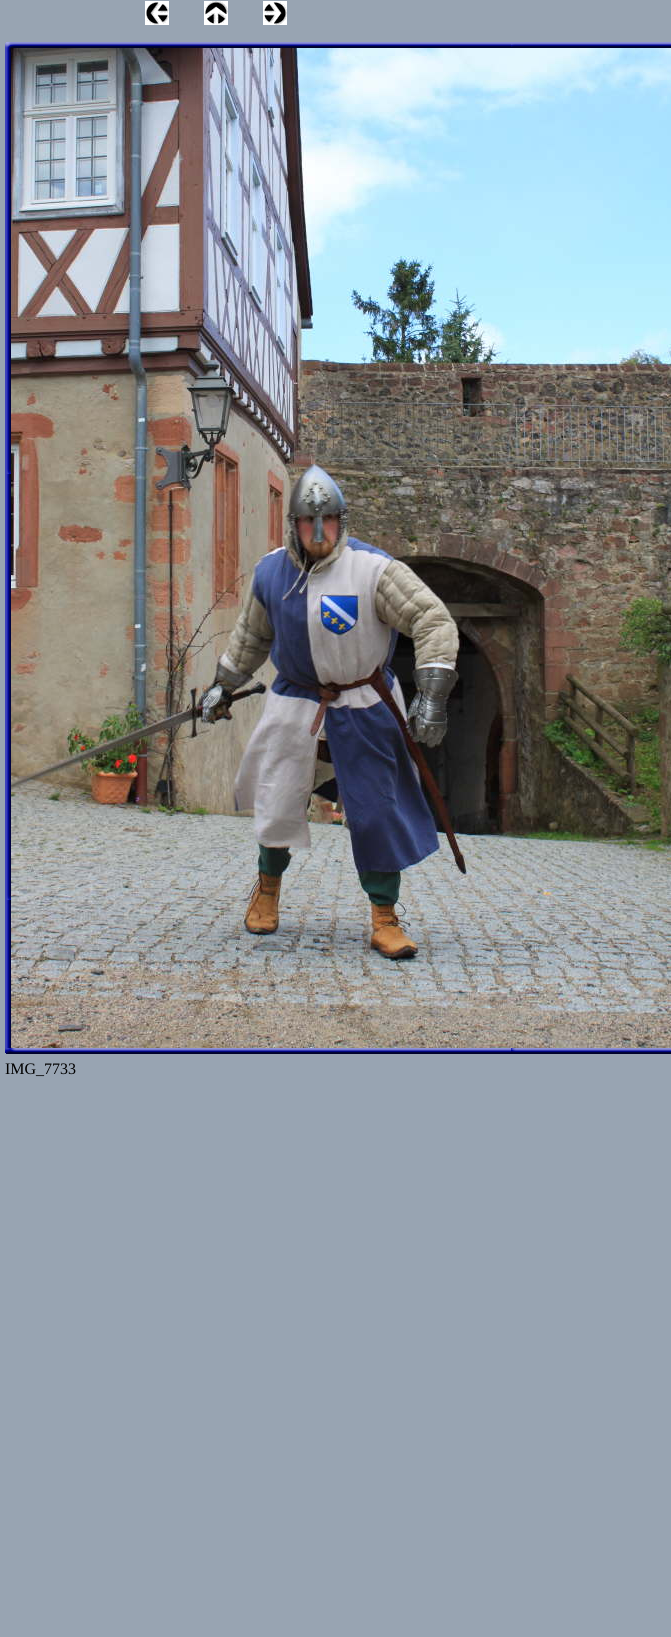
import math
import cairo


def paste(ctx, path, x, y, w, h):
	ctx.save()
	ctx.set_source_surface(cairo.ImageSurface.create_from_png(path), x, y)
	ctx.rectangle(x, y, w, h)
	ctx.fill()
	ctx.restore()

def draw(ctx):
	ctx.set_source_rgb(0.596, 0.643, 0.698)
	ctx.paint()
	paste(ctx, 'media/1.png', 145, 1, 24, 24)
	paste(ctx, 'media/2.png', 204, 1, 24, 24)
	paste(ctx, 'media/3.png', 263, 1, 24, 24)
	paste(ctx, 'media/4.png', 5, 42, 6, 6)
	paste(ctx, 'media/5.png', 11, 42, 660, 6)
	paste(ctx, 'media/6.png', 5, 48, 6, 1000)
	paste(ctx, 'media/7.png', 11, 48, 660, 1000)
	paste(ctx, 'media/8.png', 5, 1048, 6, 6)
	paste(ctx, 'media/9.png', 11, 1048, 660, 6)
	ctx.select_font_face('Liberation Serif')
	ctx.set_font_size(16)
	ctx.set_source_rgb(0, 0, 0)
	ctx.move_to(5, 1074)
	ctx.show_text('IMG_7733')


surface = cairo.ImageSurface(cairo.FORMAT_RGB24, 671, 1637)
ctx = cairo.Context(surface)
options = cairo.FontOptions()
options.set_hint_metrics(cairo.HINT_METRICS_OFF)
options.set_hint_style(cairo.HINT_STYLE_NONE)
ctx.set_font_options(options)
ctx.set_miter_limit(4)
draw(ctx)
surface.write_to_png('image.png')
